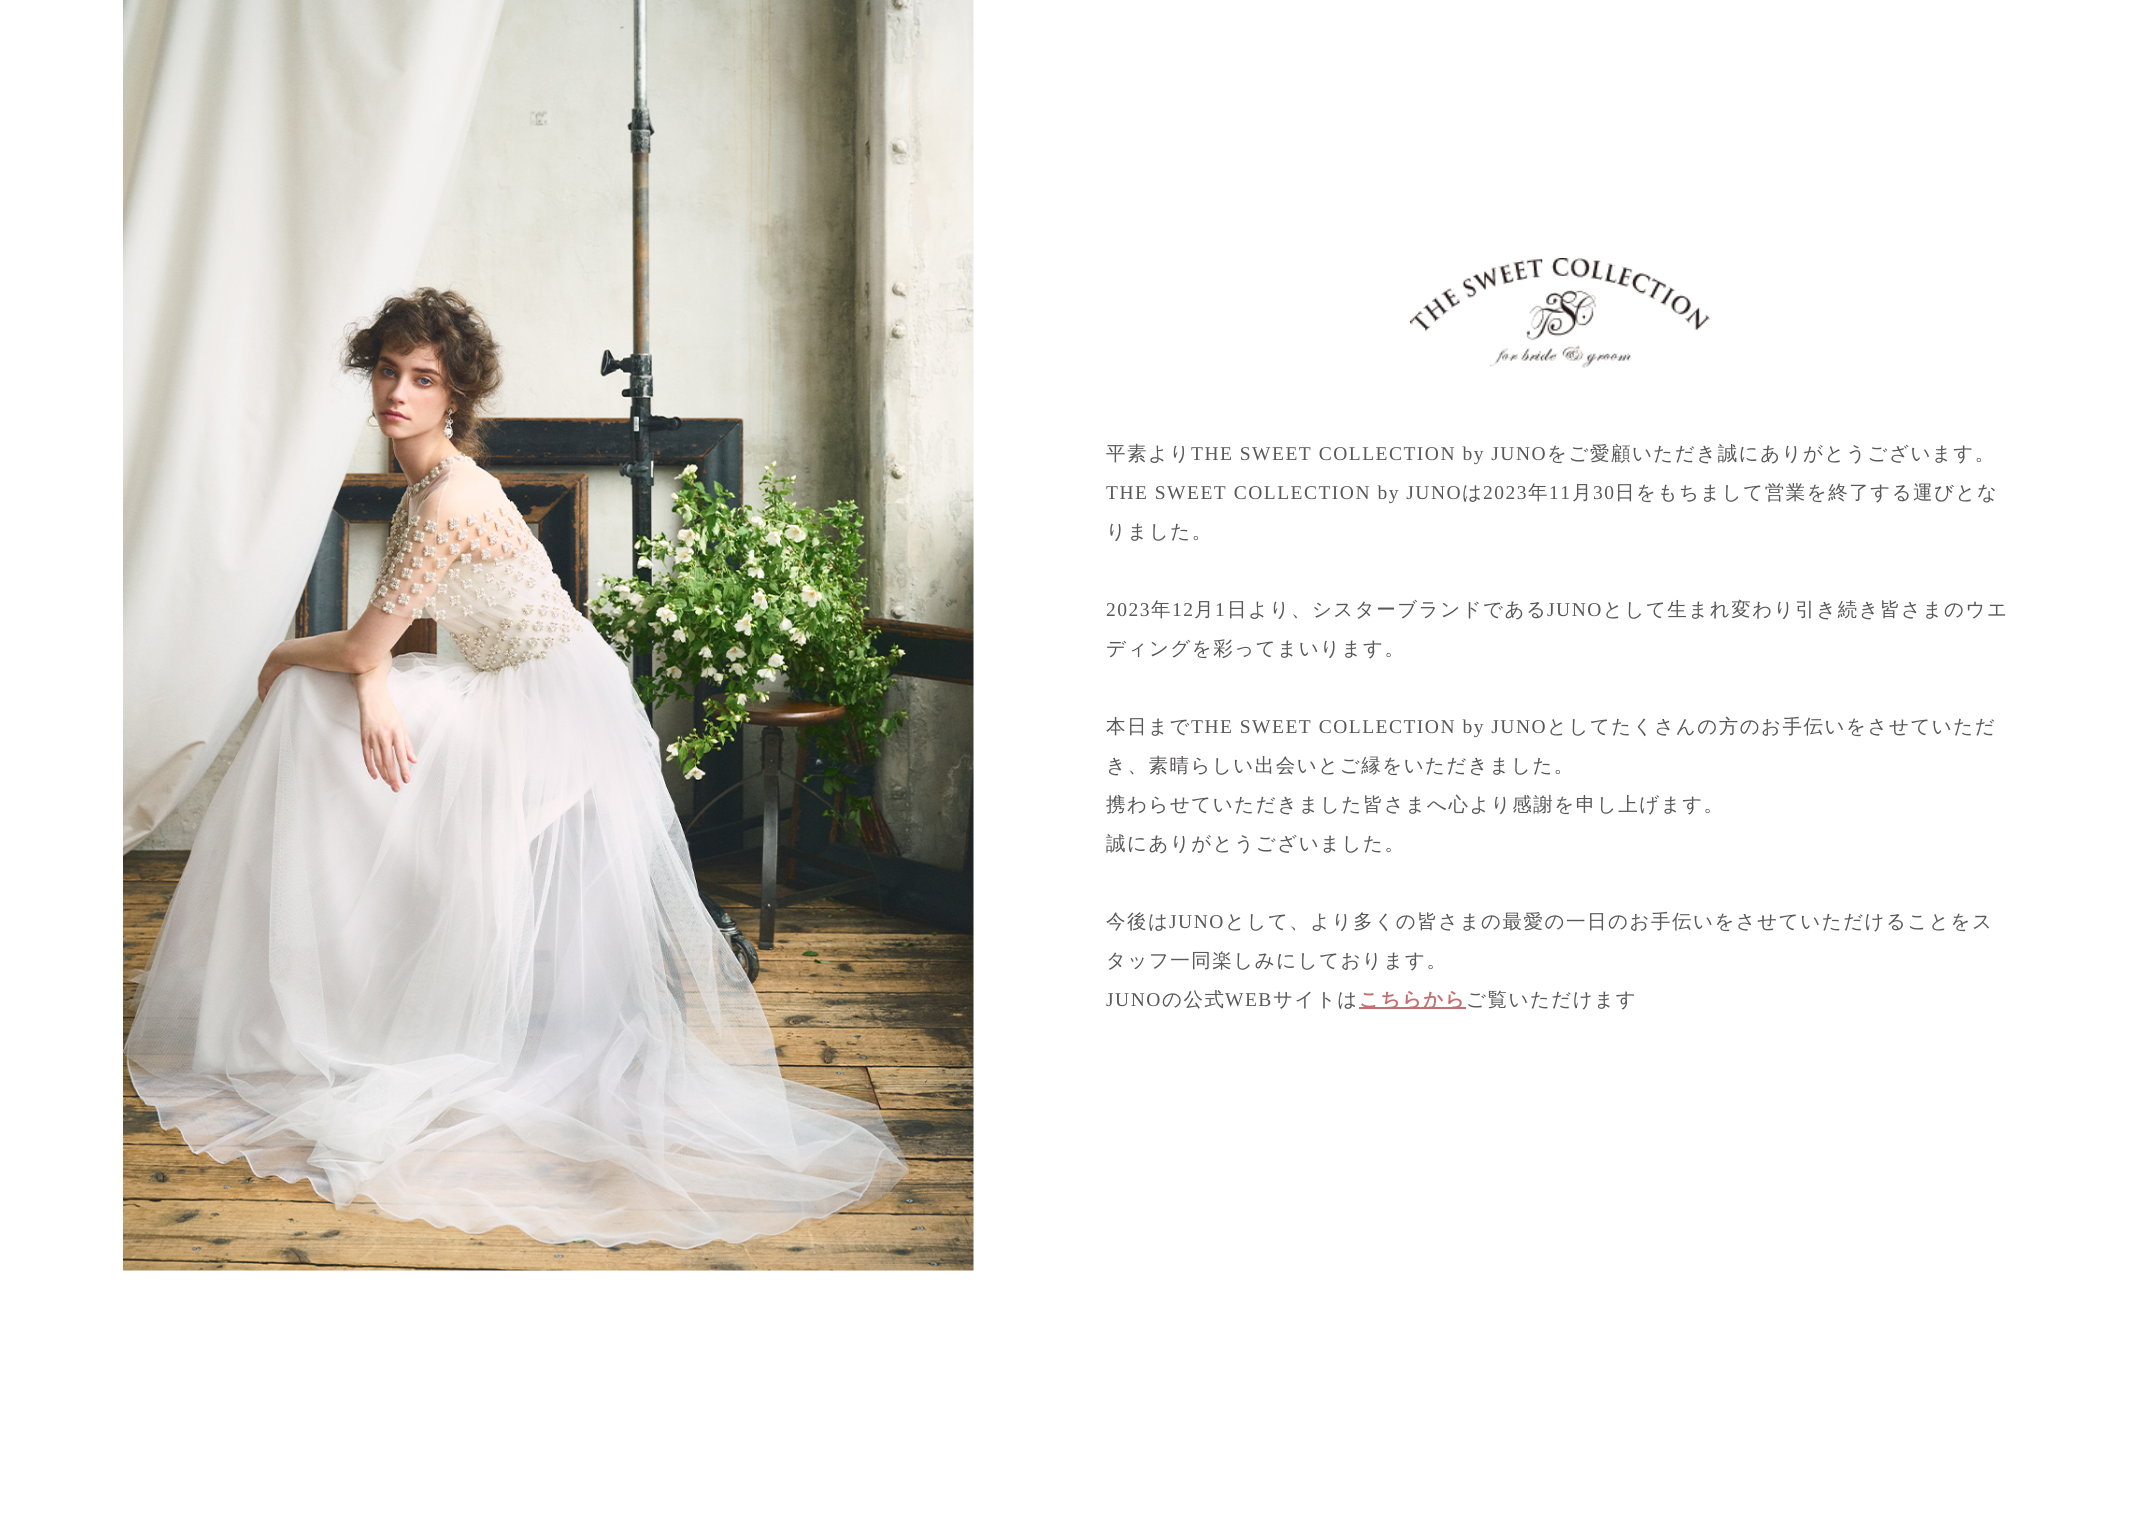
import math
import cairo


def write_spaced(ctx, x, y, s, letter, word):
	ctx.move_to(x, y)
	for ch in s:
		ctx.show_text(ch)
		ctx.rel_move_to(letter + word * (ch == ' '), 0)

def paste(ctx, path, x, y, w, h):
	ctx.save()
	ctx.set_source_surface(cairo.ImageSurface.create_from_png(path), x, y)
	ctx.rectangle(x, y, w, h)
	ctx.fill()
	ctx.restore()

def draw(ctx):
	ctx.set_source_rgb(1, 1, 1)
	ctx.paint()
	paste(ctx, 'media/1.png', 123, 0, 851, 1271)
	paste(ctx, 'media/2.png', 1410, 258, 300, 110)
	ctx.select_font_face('WenQuanYi Zen Hei Medium')
	ctx.set_font_size(19.5)
	ctx.set_source_rgb(0.349, 0.341, 0.341)
	write_spaced(ctx, 1106, 460, '平素より', 1.5, 0)
	ctx.select_font_face('Liberation Serif')
	write_spaced(ctx, 1191, 460, 'THE SWEET COLLECTION by JUNO', 1.5, 0)
	ctx.select_font_face('WenQuanYi Zen Hei Medium')
	write_spaced(ctx, 1547, 460, 'をご愛顧いただき誠にありがとうございます。', 1.5, 0)
	ctx.select_font_face('Liberation Serif')
	write_spaced(ctx, 1106, 499, 'THE SWEET COLLECTION by JUNO', 1.5, 0)
	ctx.select_font_face('WenQuanYi Zen Hei Medium')
	write_spaced(ctx, 1462, 499, 'は', 1.5, 0)
	ctx.select_font_face('Liberation Serif')
	write_spaced(ctx, 1483, 499, '2023', 1.5, 0)
	ctx.select_font_face('WenQuanYi Zen Hei Medium')
	write_spaced(ctx, 1528, 499, '年', 1.5, 0)
	ctx.select_font_face('Liberation Serif')
	write_spaced(ctx, 1549, 499, '11', 1.5, 0)
	ctx.select_font_face('WenQuanYi Zen Hei Medium')
	write_spaced(ctx, 1572, 499, '月', 1.5, 0)
	ctx.select_font_face('Liberation Serif')
	write_spaced(ctx, 1593, 499, '30', 1.5, 0)
	ctx.select_font_face('WenQuanYi Zen Hei Medium')
	write_spaced(ctx, 1615, 499, '日をもちまして営業を終了する運びとな', 1.5, 0)
	write_spaced(ctx, 1106, 538, 'りました。', 1.5, 0)
	ctx.select_font_face('Liberation Serif')
	write_spaced(ctx, 1106, 616, '2023', 1.5, 0)
	ctx.select_font_face('WenQuanYi Zen Hei Medium')
	write_spaced(ctx, 1151, 616, '年', 1.5, 0)
	ctx.select_font_face('Liberation Serif')
	write_spaced(ctx, 1172, 616, '12', 1.5, 0)
	ctx.select_font_face('WenQuanYi Zen Hei Medium')
	write_spaced(ctx, 1194, 616, '月', 1.5, 0)
	ctx.select_font_face('Liberation Serif')
	write_spaced(ctx, 1215, 616, '1', 1.5, 0)
	ctx.select_font_face('WenQuanYi Zen Hei Medium')
	write_spaced(ctx, 1227, 616, '日より、シスターブランドである', 1.5, 0)
	ctx.select_font_face('Liberation Serif')
	write_spaced(ctx, 1547, 616, 'JUNO', 1.5, 0)
	ctx.select_font_face('WenQuanYi Zen Hei Medium')
	for x, y, s in [
		(1603, 616, 'として生まれ変わり引き続き皆さまのウエ'),
		(1106, 655, 'ディングを彩ってまいります。'),
		(1106, 733, '本日まで'),
	]:
		write_spaced(ctx, x, y, s, 1.5, 0)
	ctx.select_font_face('Liberation Serif')
	write_spaced(ctx, 1191, 733, 'THE SWEET COLLECTION by JUNO', 1.5, 0)
	ctx.select_font_face('WenQuanYi Zen Hei Medium')
	for x, y, s in [
		(1547, 733, 'としてたくさんの方のお手伝いをさせていただ'),
		(1106, 772, 'き、素晴らしい出会いとご縁をいただきました。'),
		(1106, 811, '携わらせていただきました皆さまへ心より感謝を申し上げます。'),
		(1106, 850, '誠にありがとうございました。'),
		(1106, 928, '今後は'),
	]:
		write_spaced(ctx, x, y, s, 1.5, 0)
	ctx.select_font_face('Liberation Serif')
	write_spaced(ctx, 1169, 928, 'JUNO', 1.5, 0)
	ctx.select_font_face('WenQuanYi Zen Hei Medium')
	write_spaced(ctx, 1225, 928, 'として、より多くの皆さまの最愛の一日のお手伝いをさせていただけることをス', 1.5, 0)
	write_spaced(ctx, 1106, 967, 'タッフ一同楽しみにしております。', 1.5, 0)
	ctx.select_font_face('Liberation Serif')
	write_spaced(ctx, 1106, 1006, 'JUNO', 1.5, 0)
	ctx.select_font_face('WenQuanYi Zen Hei Medium')
	write_spaced(ctx, 1162, 1006, 'の公式', 1.5, 0)
	ctx.select_font_face('Liberation Serif')
	write_spaced(ctx, 1225, 1006, 'WEB', 1.5, 0)
	ctx.select_font_face('WenQuanYi Zen Hei Medium')
	write_spaced(ctx, 1273, 1006, 'サイトは', 1.5, 0)
	ctx.set_source_rgb(0.769, 0.439, 0.439)
	ctx.rectangle(1359, 1007, 107, 2)
	ctx.fill()
	ctx.select_font_face('WenQuanYi Zen Hei', cairo.FONT_SLANT_NORMAL, cairo.FONT_WEIGHT_BOLD)
	write_spaced(ctx, 1359, 1006, 'こちらから', 1.5, 0)
	ctx.select_font_face('WenQuanYi Zen Hei Medium')
	ctx.set_source_rgb(0.349, 0.341, 0.341)
	write_spaced(ctx, 1466, 1006, 'ご覧いただけます', 1.5, 0)


surface = cairo.ImageSurface(cairo.FORMAT_RGB24, 2135, 1524)
ctx = cairo.Context(surface)
options = cairo.FontOptions()
options.set_hint_metrics(cairo.HINT_METRICS_OFF)
options.set_hint_style(cairo.HINT_STYLE_NONE)
ctx.set_font_options(options)
ctx.set_miter_limit(4)
draw(ctx)
surface.write_to_png('image.png')
